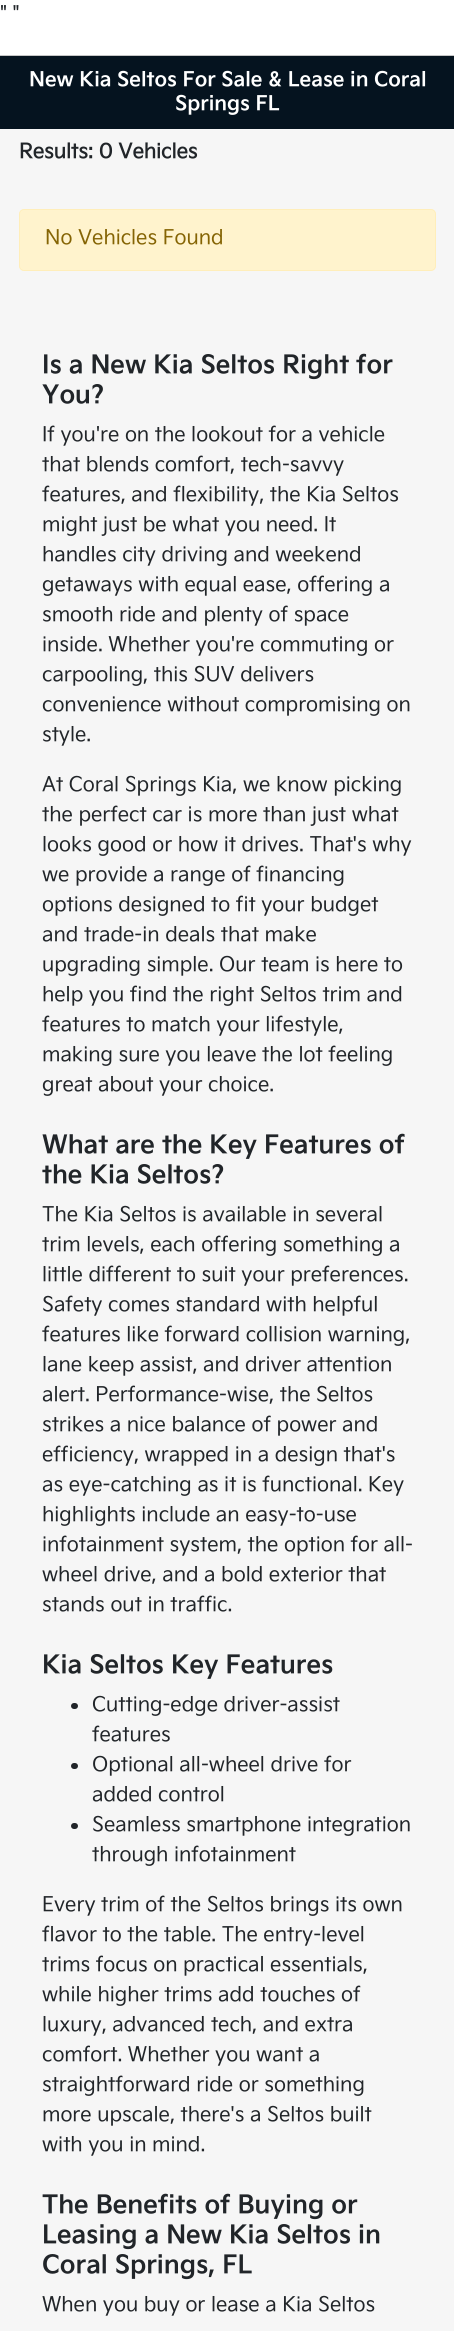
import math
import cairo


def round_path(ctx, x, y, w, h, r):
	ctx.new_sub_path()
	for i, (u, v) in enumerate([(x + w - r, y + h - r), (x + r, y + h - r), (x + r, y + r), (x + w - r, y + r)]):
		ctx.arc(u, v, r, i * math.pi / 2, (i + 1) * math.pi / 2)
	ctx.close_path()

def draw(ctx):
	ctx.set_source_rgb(1, 1, 1)
	ctx.paint()
	ctx.select_font_face('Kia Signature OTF')
	ctx.set_font_size(20)
	ctx.set_source_rgb(0.129, 0.145, 0.161)
	ctx.move_to(0, 20)
	ctx.show_text('" "')
	ctx.set_source_rgb(0.961, 0.961, 0.961)
	ctx.rectangle(0, 129, 454, 2202)
	ctx.fill()
	ctx.set_source_rgb(0.02, 0.078, 0.122)
	ctx.rectangle(0, 56, 454, 73)
	ctx.fill()
	ctx.set_source_rgb(0.776, 0.776, 0.776)
	ctx.rectangle(0, 55, 454, 1)
	ctx.fill()
	ctx.select_font_face('Kia Signature OTF', cairo.FONT_SLANT_NORMAL, cairo.FONT_WEIGHT_BOLD)
	ctx.set_source_rgb(1, 1, 1)
	ctx.move_to(29, 86)
	ctx.show_text('New Kia Seltos For Sale & Lease in Coral')
	ctx.move_to(175, 110)
	ctx.show_text('Springs FL')
	ctx.select_font_face('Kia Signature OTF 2', cairo.FONT_SLANT_NORMAL, cairo.FONT_WEIGHT_BOLD)
	ctx.set_source_rgb(0.129, 0.145, 0.161)
	ctx.move_to(19, 158)
	ctx.show_text('Results: 0 Vehicles')
	ctx.set_source_rgb(1, 0.953, 0.804)
	round_path(ctx, 19.5, 209.5, 416, 61, 4.5)
	ctx.fill_preserve()
	ctx.set_source_rgb(1, 0.933, 0.729)
	ctx.set_line_width(1)
	ctx.stroke()
	ctx.select_font_face('Kia Signature OTF')
	ctx.set_source_rgb(0.522, 0.392, 0.016)
	ctx.move_to(45, 244)
	ctx.show_text('No Vehicles Found')
	ctx.select_font_face('Kia Signature OTF', cairo.FONT_SLANT_NORMAL, cairo.FONT_WEIGHT_BOLD)
	ctx.set_font_size(25)
	ctx.set_source_rgb(0.129, 0.145, 0.161)
	ctx.move_to(42, 373)
	ctx.show_text('Is a New Kia Seltos Right for')
	ctx.move_to(42, 403)
	ctx.show_text('You?')
	ctx.select_font_face('Kia Signature OTF')
	ctx.set_font_size(20)
	for x, y, s in [
		(42, 441, 'If you\'re on the lookout for a vehicle'),
		(42, 471, 'that blends comfort, tech-savvy'),
		(42, 501, 'features, and flexibility, the Kia Seltos'),
		(42, 531, 'might just be what you need. It'),
		(42, 561, 'handles city driving and weekend'),
		(42, 591, 'getaways with equal ease, offering a'),
		(42, 621, 'smooth ride and plenty of space'),
		(42, 651, 'inside. Whether you\'re commuting or'),
		(42, 681, 'carpooling, this SUV delivers'),
		(42, 711, 'convenience without compromising on'),
		(42, 741, 'style.'),
		(42, 791, 'At Coral Springs Kia, we know picking'),
		(42, 821, 'the perfect car is more than just what'),
		(42, 851, 'looks good or how it drives. That\'s why'),
		(42, 881, 'we provide a range of financing'),
		(42, 911, 'options designed to fit your budget'),
		(42, 941, 'and trade-in deals that make'),
		(42, 971, 'upgrading simple. Our team is here to'),
		(42, 1001, 'help you find the right Seltos trim and'),
		(42, 1031, 'features to match your lifestyle,'),
		(42, 1061, 'making sure you leave the lot feeling'),
		(42, 1091, 'great about your choice.'),
	]:
		ctx.move_to(x, y)
		ctx.show_text(s)
	ctx.select_font_face('Kia Signature OTF', cairo.FONT_SLANT_NORMAL, cairo.FONT_WEIGHT_BOLD)
	ctx.set_font_size(25)
	ctx.move_to(42, 1153)
	ctx.show_text('What are the Key Features of')
	ctx.move_to(42, 1183)
	ctx.show_text('the Kia Seltos?')
	ctx.select_font_face('Kia Signature OTF')
	ctx.set_font_size(20)
	for x, y, s in [
		(42, 1221, 'The Kia Seltos is available in several'),
		(42, 1251, 'trim levels, each offering something a'),
		(42, 1281, 'little different to suit your preferences.'),
		(42, 1311, 'Safety comes standard with helpful'),
		(42, 1341, 'features like forward collision warning,'),
		(42, 1371, 'lane keep assist, and driver attention'),
		(42, 1401, 'alert. Performance-wise, the Seltos'),
		(42, 1431, 'strikes a nice balance of power and'),
		(42, 1461, 'efficiency, wrapped in a design that\'s'),
		(42, 1491, 'as eye-catching as it is functional. Key'),
		(42, 1521, 'highlights include an easy-to-use'),
		(42, 1551, 'infotainment system, the option for all-'),
		(42, 1581, 'wheel drive, and a bold exterior that'),
		(42, 1611, 'stands out in traffic.'),
	]:
		ctx.move_to(x, y)
		ctx.show_text(s)
	ctx.select_font_face('Kia Signature OTF', cairo.FONT_SLANT_NORMAL, cairo.FONT_WEIGHT_BOLD)
	ctx.set_font_size(25)
	ctx.move_to(42, 1673)
	ctx.show_text('Kia Seltos Key Features')
	round_path(ctx, 71, 1703, 7, 6, 3)
	ctx.fill()
	ctx.select_font_face('Kia Signature OTF')
	ctx.set_font_size(20)
	ctx.move_to(92, 1711)
	ctx.show_text('Cutting-edge driver-assist')
	ctx.move_to(92, 1741)
	ctx.show_text('features')
	round_path(ctx, 71, 1763, 7, 6, 3)
	ctx.fill()
	ctx.move_to(92, 1771)
	ctx.show_text('Optional all-wheel drive for')
	ctx.move_to(92, 1801)
	ctx.show_text('added control')
	round_path(ctx, 71, 1823, 7, 6, 3)
	ctx.fill()
	for x, y, s in [
		(92, 1831, 'Seamless smartphone integration'),
		(92, 1861, 'through infotainment'),
		(42, 1911, 'Every trim of the Seltos brings its own'),
		(42, 1941, 'flavor to the table. The entry-level'),
		(42, 1971, 'trims focus on practical essentials,'),
		(42, 2001, 'while higher trims add touches of'),
		(42, 2031, 'luxury, advanced tech, and extra'),
		(42, 2061, 'comfort. Whether you want a'),
		(42, 2091, 'straightforward ride or something'),
		(42, 2121, 'more upscale, there\'s a Seltos built'),
		(42, 2151, 'with you in mind.'),
	]:
		ctx.move_to(x, y)
		ctx.show_text(s)
	ctx.select_font_face('Kia Signature OTF', cairo.FONT_SLANT_NORMAL, cairo.FONT_WEIGHT_BOLD)
	ctx.set_font_size(25)
	for x, y, s in [
		(42, 2213, 'The Benefits of Buying or'),
		(42, 2243, 'Leasing a New Kia Seltos in'),
		(42, 2273, 'Coral Springs, FL'),
	]:
		ctx.move_to(x, y)
		ctx.show_text(s)
	ctx.select_font_face('Kia Signature OTF')
	ctx.set_font_size(20)
	ctx.move_to(42, 2311)
	ctx.show_text('When you buy or lease a Kia Seltos')


surface = cairo.ImageSurface(cairo.FORMAT_RGB24, 454, 2331)
ctx = cairo.Context(surface)
options = cairo.FontOptions()
options.set_hint_metrics(cairo.HINT_METRICS_OFF)
options.set_hint_style(cairo.HINT_STYLE_NONE)
ctx.set_font_options(options)
ctx.set_miter_limit(4)
draw(ctx)
surface.write_to_png('image.png')
